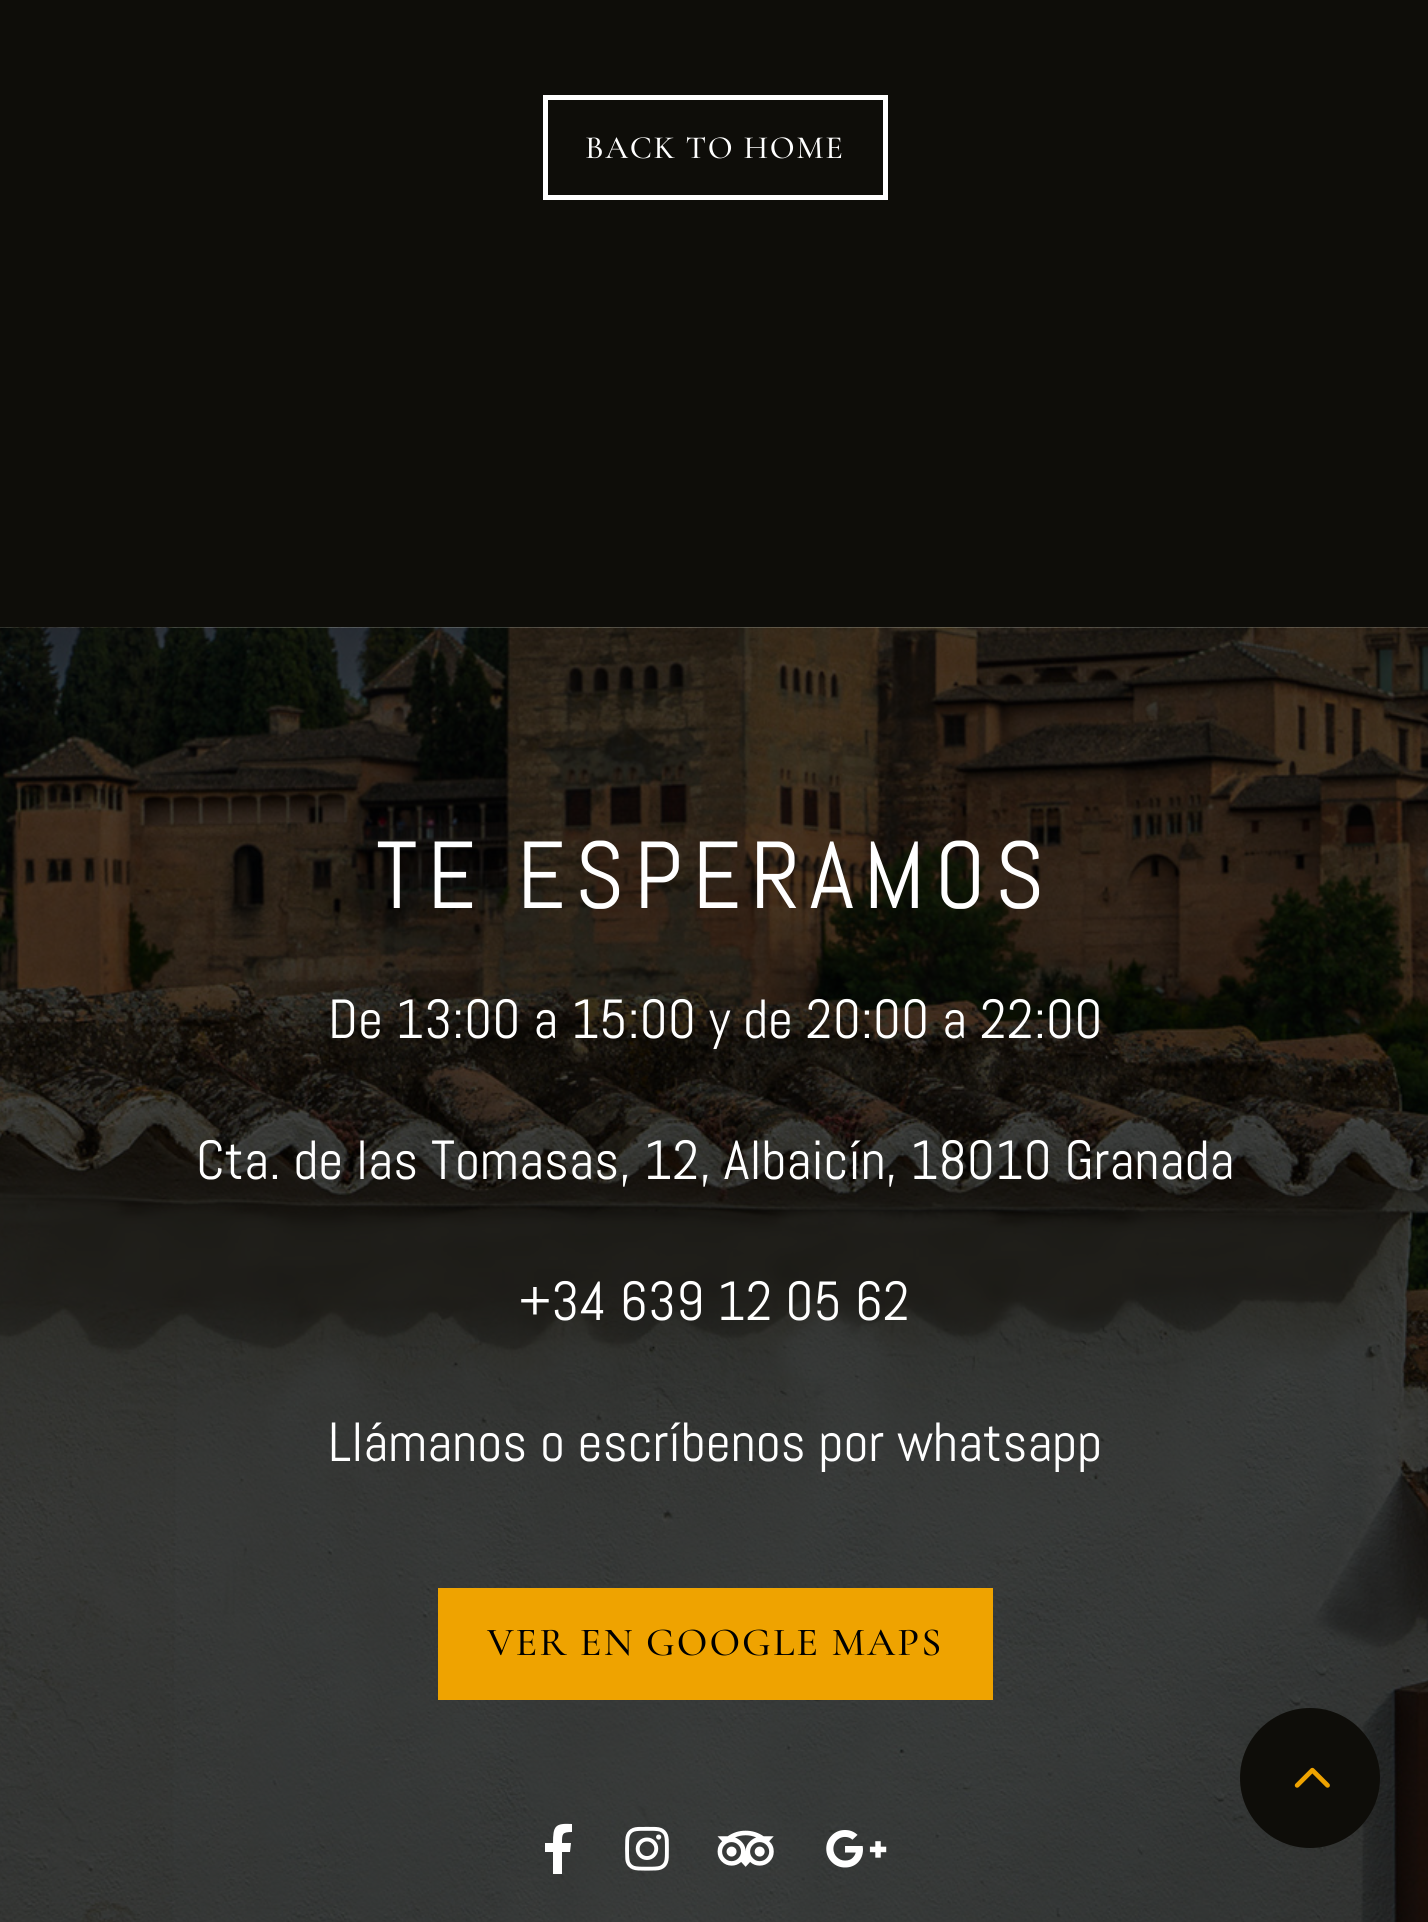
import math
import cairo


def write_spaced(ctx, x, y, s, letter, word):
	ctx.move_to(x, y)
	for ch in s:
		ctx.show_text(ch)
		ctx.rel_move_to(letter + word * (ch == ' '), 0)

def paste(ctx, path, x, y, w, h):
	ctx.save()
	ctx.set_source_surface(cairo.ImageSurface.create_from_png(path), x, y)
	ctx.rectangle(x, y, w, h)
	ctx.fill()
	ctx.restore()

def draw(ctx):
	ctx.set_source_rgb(0.055, 0.051, 0.039)
	ctx.paint()
	ctx.rectangle(545.5, 97.5, 340, 100)
	ctx.set_source_rgb(1, 1, 1)
	ctx.set_line_width(5)
	ctx.stroke()
	ctx.select_font_face('Cormorant Garamond Medium')
	ctx.set_font_size(32.5)
	write_spaced(ctx, 585, 158, 'BACK TO HOME', 1.6, 0)
	paste(ctx, 'media/1.png', 0, 627, 1428, 1295)
	ctx.select_font_face('Abel')
	ctx.set_font_size(95)
	write_spaced(ctx, 376, 908, 'TE ESPERAMOS', 9.5, 0)
	ctx.set_font_size(55)
	for x, y, s in [
		(328, 1038, 'De 13:00 a 15:00 y de 20:00 a 22:00'),
		(196, 1179, 'Cta. de las Tomasas, 12, Albaicín, 18010 Granada'),
		(519, 1320, '+34 639 12 05 62'),
		(328, 1461, 'Llámanos o escríbenos por whatsapp'),
	]:
		ctx.move_to(x, y)
		ctx.show_text(s)
	ctx.set_source_rgb(0.937, 0.639, 0)
	ctx.rectangle(438, 1588, 555, 112)
	ctx.fill()
	ctx.select_font_face('Cormorant Garamond Medium')
	ctx.set_font_size(40)
	ctx.set_source_rgb(0, 0, 0)
	write_spaced(ctx, 487, 1655, 'VER EN GOOGLE MAPS', 2, 0)
	ctx.set_source_rgb(1, 1, 1)
	ctx.new_path()
	ctx.move_to(570, 1852)
	ctx.line_to(562, 1852)
	ctx.line_to(562, 1874)
	ctx.line_to(553, 1874)
	ctx.line_to(553, 1852)
	ctx.line_to(545, 1852)
	ctx.line_to(545, 1843)
	ctx.line_to(553, 1843)
	ctx.curve_to(553, 1826, 555, 1823, 572, 1824)
	ctx.line_to(572, 1832)
	ctx.curve_to(562, 1832, 562, 1834, 562, 1843)
	ctx.line_to(571, 1843)
	ctx.close_path()
	ctx.fill()
	paste(ctx, 'media/2.png', 625, 1826, 44, 45)
	paste(ctx, 'media/3.png', 717, 1830, 57, 37)
	paste(ctx, 'media/4.png', 826, 1830, 61, 38)
	ctx.set_source_rgb(0.055, 0.051, 0.039)
	ctx.arc(1310, 1778, 70, 0, 2 * math.pi)
	ctx.fill()
	paste(ctx, 'media/5.png', 1294, 1767, 36, 21)


surface = cairo.ImageSurface(cairo.FORMAT_RGB24, 1428, 1922)
ctx = cairo.Context(surface)
options = cairo.FontOptions()
options.set_hint_metrics(cairo.HINT_METRICS_OFF)
options.set_hint_style(cairo.HINT_STYLE_NONE)
ctx.set_font_options(options)
ctx.set_miter_limit(4)
draw(ctx)
surface.write_to_png('image.png')
